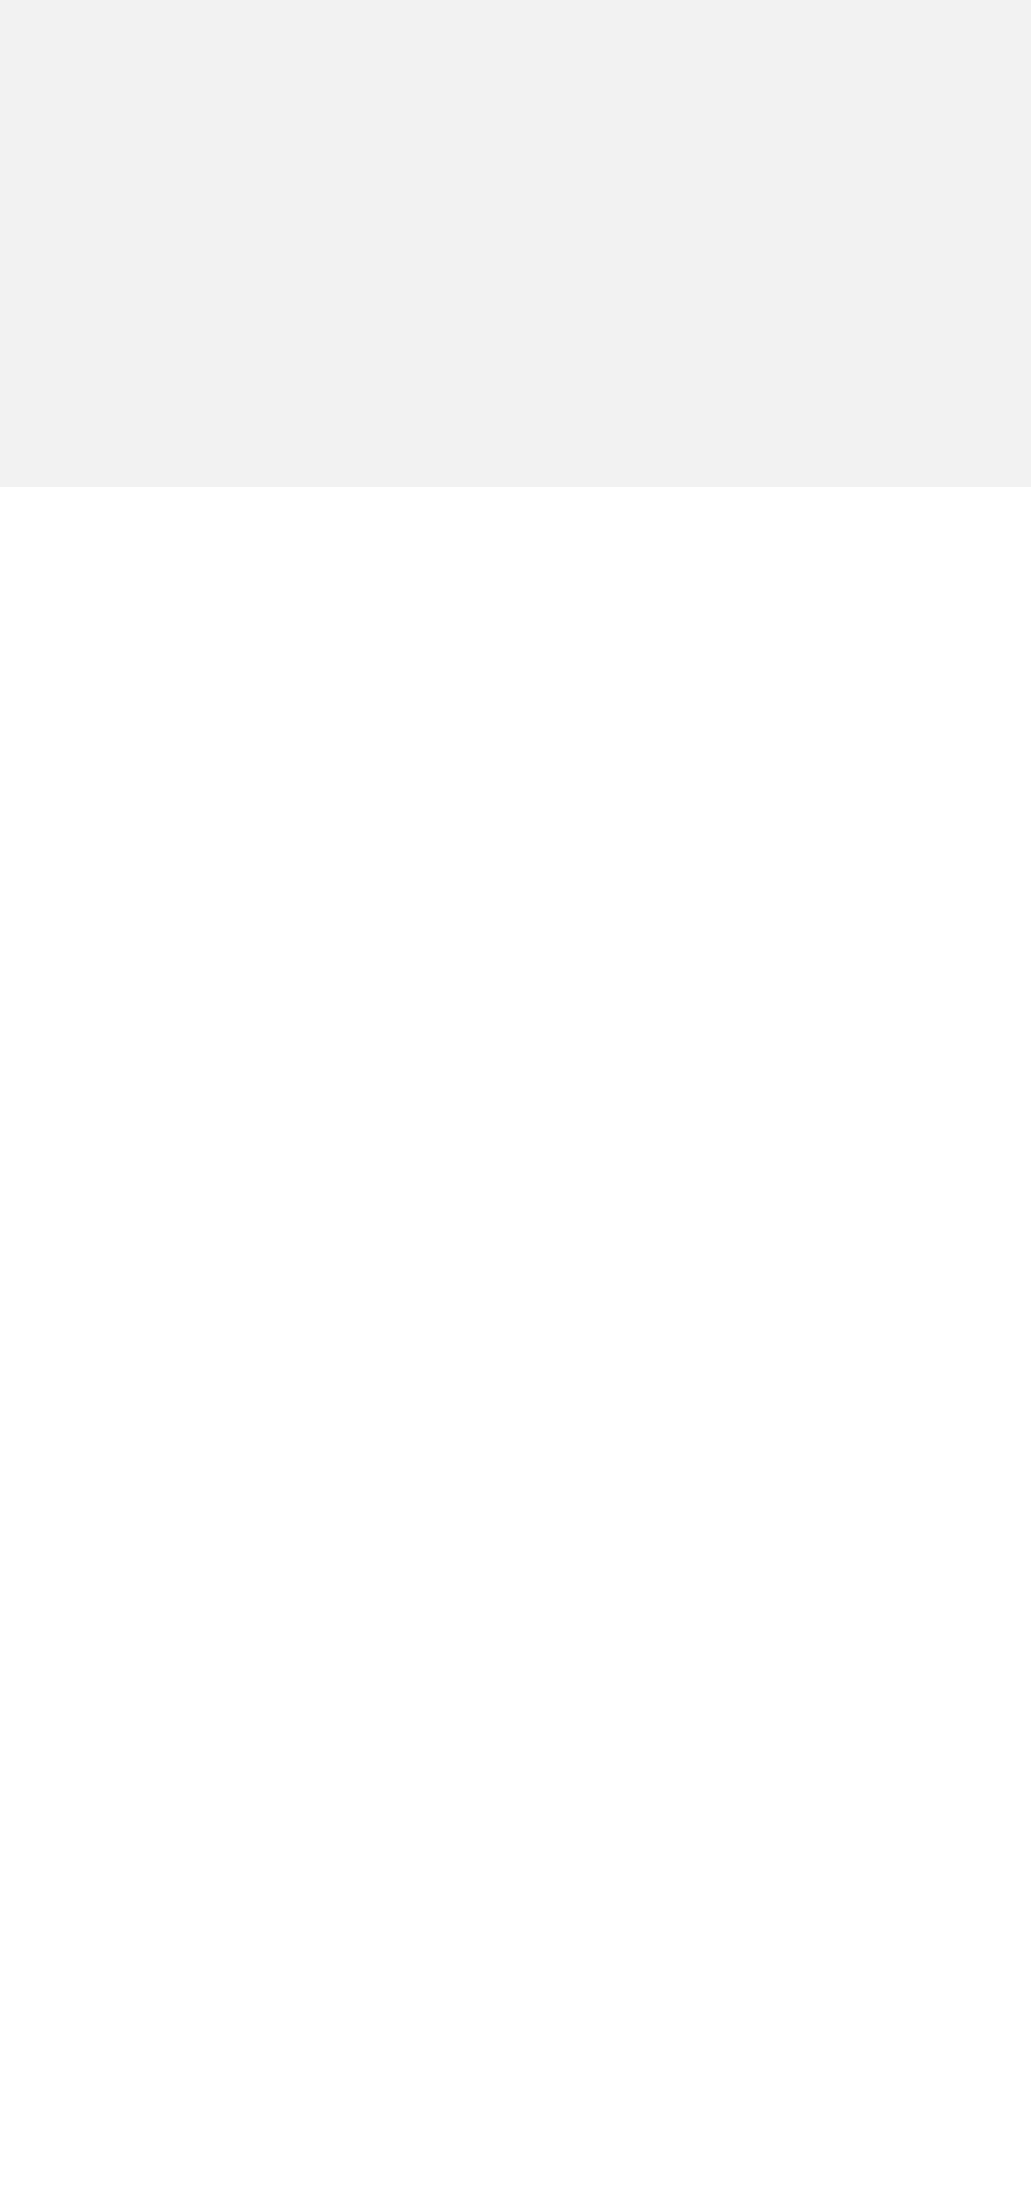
import math
import cairo


def draw(ctx):
	ctx.set_source_rgb(1, 1, 1)
	ctx.paint()
	ctx.set_source_rgb(0.949, 0.949, 0.949)
	ctx.rectangle(0, 0, 1031, 487)
	ctx.fill()


surface = cairo.ImageSurface(cairo.FORMAT_RGB24, 1031, 2185)
ctx = cairo.Context(surface)
options = cairo.FontOptions()
options.set_hint_metrics(cairo.HINT_METRICS_OFF)
options.set_hint_style(cairo.HINT_STYLE_NONE)
ctx.set_font_options(options)
ctx.set_miter_limit(4)
draw(ctx)
surface.write_to_png('image.png')
